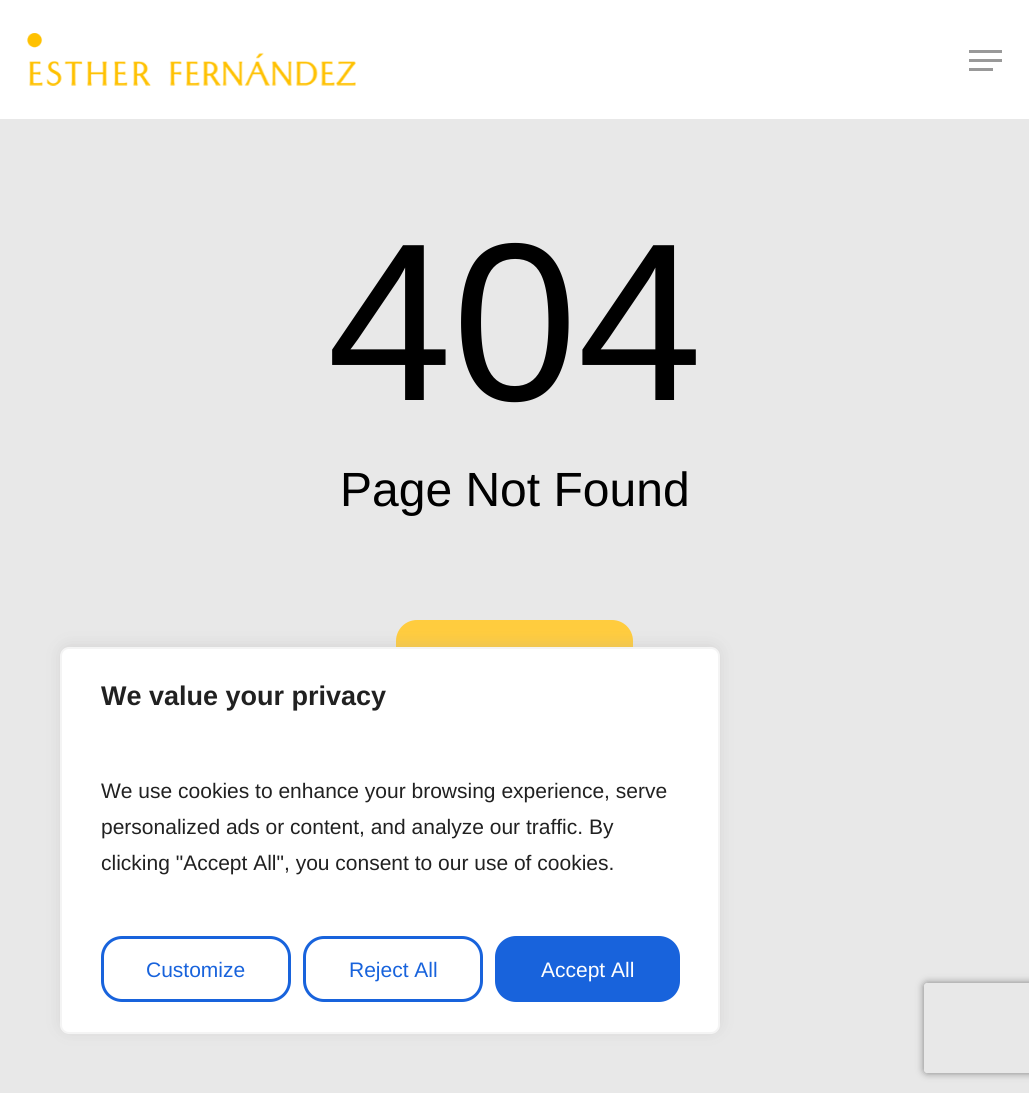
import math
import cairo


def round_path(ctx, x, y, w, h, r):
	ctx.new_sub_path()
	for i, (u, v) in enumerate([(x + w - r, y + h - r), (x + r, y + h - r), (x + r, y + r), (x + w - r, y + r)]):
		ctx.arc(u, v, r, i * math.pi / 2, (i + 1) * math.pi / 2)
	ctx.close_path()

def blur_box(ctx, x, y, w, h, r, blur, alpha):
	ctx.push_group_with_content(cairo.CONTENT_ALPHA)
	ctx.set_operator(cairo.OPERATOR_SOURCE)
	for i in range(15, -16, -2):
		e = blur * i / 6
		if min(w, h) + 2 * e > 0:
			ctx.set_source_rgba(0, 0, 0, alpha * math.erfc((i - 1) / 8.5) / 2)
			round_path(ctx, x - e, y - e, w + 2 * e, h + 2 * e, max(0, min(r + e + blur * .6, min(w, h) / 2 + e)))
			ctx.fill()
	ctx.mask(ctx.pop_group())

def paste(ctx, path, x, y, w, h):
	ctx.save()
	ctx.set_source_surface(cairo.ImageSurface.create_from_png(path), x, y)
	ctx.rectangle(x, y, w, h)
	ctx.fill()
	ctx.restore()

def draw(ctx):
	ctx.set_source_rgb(0.91, 0.91, 0.91)
	ctx.paint()
	ctx.set_source_rgb(1, 1, 1)
	ctx.rectangle(0, 0, 1029, 119)
	ctx.fill()
	paste(ctx, 'media/1.png', 27, 33, 329, 53)
	ctx.set_source_rgb(0.6, 0.6, 0.6)
	ctx.rectangle(969, 50, 33, 3)
	ctx.rectangle(969, 68, 24, 3)
	ctx.rectangle(969, 59, 33, 3)
	ctx.fill()
	ctx.select_font_face('Liberation Sans')
	ctx.set_font_size(225)
	ctx.set_source_rgb(0, 0, 0)
	ctx.move_to(327, 400)
	ctx.show_text('404')
	ctx.set_font_size(48)
	ctx.move_to(340, 506)
	ctx.show_text('Page Not Found')
	ctx.set_source_rgb(1, 0.8, 0.243)
	round_path(ctx, 396, 620, 237, 75, 21)
	ctx.fill()
	ctx.set_source_rgb(0.675, 0.671, 0.671)
	blur_box(ctx, 60, 645, 660, 387, 9, 7.5, 0.3)
	ctx.set_source_rgb(1, 1, 1)
	round_path(ctx, 61, 648, 658, 385, 8)
	ctx.fill_preserve()
	ctx.set_source_rgb(0.957, 0.957, 0.957)
	ctx.stroke()
	ctx.select_font_face('Liberation Sans', cairo.FONT_SLANT_NORMAL, cairo.FONT_WEIGHT_BOLD)
	ctx.set_font_size(27)
	ctx.set_source_rgb(0.129, 0.129, 0.129)
	ctx.move_to(101, 705)
	ctx.show_text('We value your privacy')
	ctx.select_font_face('Liberation Sans')
	ctx.set_font_size(21)
	for x, y, s in [
		(101, 798, 'We use cookies to enhance your browsing experience, serve'),
		(101, 834, 'personalized ads or content, and analyze our traffic. By'),
		(101, 870, 'clicking "Accept All", you consent to our use of cookies.'),
	]:
		ctx.move_to(x, y)
		ctx.show_text(s)
	round_path(ctx, 102.5, 937.5, 187, 63, 19.5)
	ctx.set_source_rgb(0.094, 0.388, 0.863)
	ctx.set_line_width(3)
	ctx.stroke()
	ctx.move_to(146, 977)
	ctx.show_text('Customize')
	round_path(ctx, 304.5, 937.5, 177, 63, 19.5)
	ctx.stroke()
	ctx.move_to(349, 977)
	ctx.show_text('Reject All')
	round_path(ctx, 496.5, 937.5, 182, 63, 19.5)
	ctx.fill_preserve()
	ctx.stroke()
	ctx.set_source_rgb(1, 1, 1)
	ctx.move_to(541, 977)
	ctx.show_text('Accept All')
	ctx.save()
	ctx.set_fill_rule(cairo.FILL_RULE_EVEN_ODD)
	ctx.new_path()
	ctx.move_to(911, 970)
	ctx.line_to(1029, 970)
	ctx.line_to(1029, 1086)
	ctx.line_to(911, 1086)
	ctx.close_path()
	ctx.move_to(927, 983)
	ctx.line_to(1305, 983)
	ctx.curve_to(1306.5, 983, 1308, 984.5, 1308, 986)
	ctx.line_to(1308, 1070)
	ctx.curve_to(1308, 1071.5, 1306.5, 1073, 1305, 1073)
	ctx.line_to(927, 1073)
	ctx.curve_to(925.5, 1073, 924, 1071.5, 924, 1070)
	ctx.line_to(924, 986)
	ctx.curve_to(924, 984.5, 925.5, 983, 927, 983)
	ctx.close_path()
	ctx.clip()
	ctx.set_source_rgb(0.502, 0.502, 0.502)
	blur_box(ctx, 924, 983, 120, 90, 3, 4, 1)
	ctx.restore()


surface = cairo.ImageSurface(cairo.FORMAT_RGB24, 1029, 1093)
ctx = cairo.Context(surface)
options = cairo.FontOptions()
options.set_hint_metrics(cairo.HINT_METRICS_OFF)
options.set_hint_style(cairo.HINT_STYLE_NONE)
ctx.set_font_options(options)
ctx.set_miter_limit(4)
draw(ctx)
surface.write_to_png('image.png')
